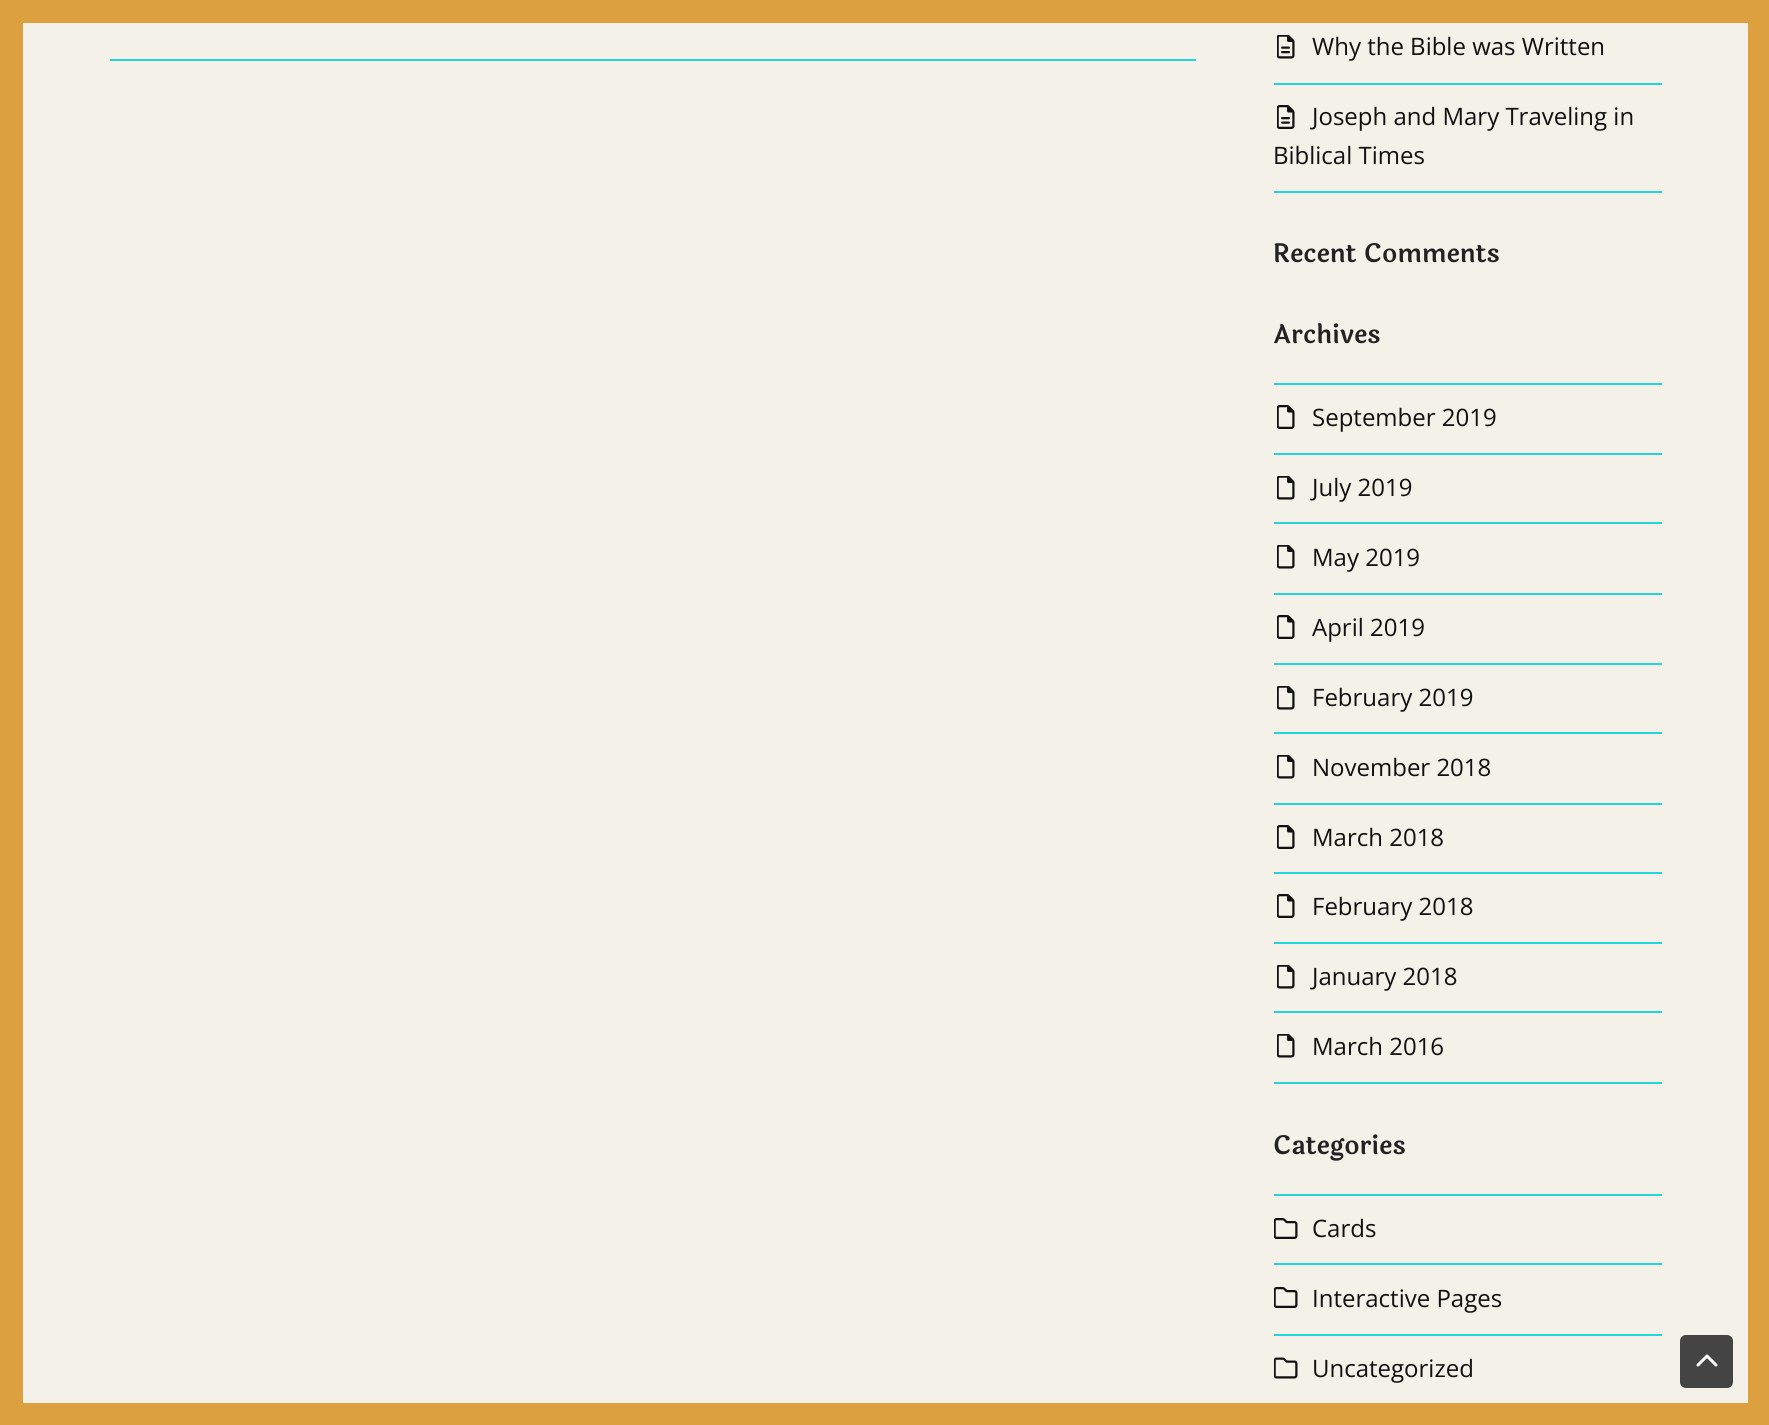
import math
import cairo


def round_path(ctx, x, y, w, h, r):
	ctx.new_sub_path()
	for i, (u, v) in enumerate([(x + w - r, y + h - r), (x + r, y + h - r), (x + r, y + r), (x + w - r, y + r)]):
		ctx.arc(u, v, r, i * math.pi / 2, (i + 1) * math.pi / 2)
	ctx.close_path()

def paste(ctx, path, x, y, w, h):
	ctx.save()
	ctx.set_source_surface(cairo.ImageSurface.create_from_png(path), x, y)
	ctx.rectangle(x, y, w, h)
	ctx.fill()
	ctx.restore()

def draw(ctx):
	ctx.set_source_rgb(0.957, 0.945, 0.91)
	ctx.paint()
	ctx.set_source_rgb(0.867, 0.627, 0.243)
	ctx.rectangle(0, 0, 1769, 23)
	ctx.rectangle(0, 23, 23, 1380)
	ctx.fill()
	ctx.set_source_rgb(0.137, 0.835, 0.859)
	ctx.rectangle(110, 59, 1086, 2)
	ctx.rectangle(1274, 83, 388, 2)
	ctx.fill()
	paste(ctx, 'media/1.png', 1277, 35, 18, 24)
	ctx.select_font_face('Open Sans')
	ctx.set_font_size(24)
	ctx.set_source_rgb(0.067, 0.067, 0.067)
	ctx.move_to(1312, 55)
	ctx.show_text('Why the Bible was Written')
	ctx.set_source_rgb(0.137, 0.835, 0.859)
	ctx.rectangle(1274, 191, 388, 2)
	ctx.fill()
	paste(ctx, 'media/2.png', 1277, 105, 18, 24)
	ctx.set_source_rgb(0.067, 0.067, 0.067)
	ctx.move_to(1312, 125)
	ctx.show_text('Joseph and Mary Traveling in')
	ctx.move_to(1273, 164)
	ctx.show_text('Biblical Times')
	ctx.select_font_face('Laila SemiBold')
	ctx.set_font_size(25.75)
	ctx.set_source_rgb(0.133, 0.133, 0.133)
	ctx.move_to(1273, 262)
	ctx.show_text('Recent Comments')
	ctx.move_to(1273, 343)
	ctx.show_text('Archives')
	ctx.set_source_rgb(0.137, 0.835, 0.859)
	ctx.rectangle(1274, 383, 388, 2)
	ctx.fill()
	ctx.rectangle(1274, 453, 388, 2)
	ctx.fill()
	paste(ctx, 'media/3.png', 1277, 405, 18, 24)
	ctx.select_font_face('Open Sans')
	ctx.set_font_size(24)
	ctx.set_source_rgb(0.067, 0.067, 0.067)
	ctx.move_to(1312, 426)
	ctx.show_text('September 2019')
	ctx.set_source_rgb(0.137, 0.835, 0.859)
	ctx.rectangle(1274, 522, 388, 2)
	ctx.fill()
	paste(ctx, 'media/4.png', 1277, 476, 18, 24)
	ctx.set_source_rgb(0.067, 0.067, 0.067)
	ctx.move_to(1312, 496)
	ctx.show_text('July 2019')
	ctx.set_source_rgb(0.137, 0.835, 0.859)
	ctx.rectangle(1274, 593, 388, 2)
	ctx.fill()
	paste(ctx, 'media/4.png', 1277, 545, 18, 24)
	ctx.set_source_rgb(0.067, 0.067, 0.067)
	ctx.move_to(1312, 566)
	ctx.show_text('May 2019')
	ctx.set_source_rgb(0.137, 0.835, 0.859)
	ctx.rectangle(1274, 663, 388, 2)
	ctx.fill()
	paste(ctx, 'media/3.png', 1277, 615, 18, 24)
	ctx.set_source_rgb(0.067, 0.067, 0.067)
	ctx.move_to(1312, 636)
	ctx.show_text('April 2019')
	ctx.set_source_rgb(0.137, 0.835, 0.859)
	ctx.rectangle(1274, 732, 388, 2)
	ctx.fill()
	paste(ctx, 'media/4.png', 1277, 686, 18, 24)
	ctx.set_source_rgb(0.067, 0.067, 0.067)
	ctx.move_to(1312, 706)
	ctx.show_text('February 2019')
	ctx.set_source_rgb(0.137, 0.835, 0.859)
	ctx.rectangle(1274, 803, 388, 2)
	ctx.fill()
	paste(ctx, 'media/4.png', 1277, 755, 18, 24)
	ctx.set_source_rgb(0.067, 0.067, 0.067)
	ctx.move_to(1312, 776)
	ctx.show_text('November 2018')
	ctx.set_source_rgb(0.137, 0.835, 0.859)
	ctx.rectangle(1274, 872, 388, 2)
	ctx.fill()
	paste(ctx, 'media/3.png', 1277, 825, 18, 24)
	ctx.set_source_rgb(0.067, 0.067, 0.067)
	ctx.move_to(1312, 846)
	ctx.show_text('March 2018')
	ctx.set_source_rgb(0.137, 0.835, 0.859)
	ctx.rectangle(1274, 942, 388, 2)
	ctx.fill()
	paste(ctx, 'media/3.png', 1277, 894, 18, 24)
	ctx.set_source_rgb(0.067, 0.067, 0.067)
	ctx.move_to(1312, 915)
	ctx.show_text('February 2018')
	ctx.set_source_rgb(0.137, 0.835, 0.859)
	ctx.rectangle(1274, 1011, 388, 2)
	ctx.fill()
	paste(ctx, 'media/4.png', 1277, 965, 18, 24)
	ctx.set_source_rgb(0.067, 0.067, 0.067)
	ctx.move_to(1312, 985)
	ctx.show_text('January 2018')
	ctx.set_source_rgb(0.137, 0.835, 0.859)
	ctx.rectangle(1274, 1082, 388, 2)
	ctx.fill()
	paste(ctx, 'media/4.png', 1277, 1034, 18, 24)
	ctx.set_source_rgb(0.067, 0.067, 0.067)
	ctx.move_to(1312, 1055)
	ctx.show_text('March 2016')
	ctx.select_font_face('Laila SemiBold')
	ctx.set_font_size(25.75)
	ctx.set_source_rgb(0.133, 0.133, 0.133)
	ctx.move_to(1273, 1154)
	ctx.show_text('Categories')
	ctx.set_source_rgb(0.137, 0.835, 0.859)
	ctx.rectangle(1274, 1194, 388, 2)
	ctx.fill()
	ctx.rectangle(1274, 1263, 388, 2)
	ctx.fill()
	paste(ctx, 'media/5.png', 1274, 1218, 24, 21)
	ctx.select_font_face('Open Sans')
	ctx.set_font_size(24)
	ctx.set_source_rgb(0.067, 0.067, 0.067)
	ctx.move_to(1312, 1237)
	ctx.show_text('Cards')
	ctx.set_source_rgb(0.137, 0.835, 0.859)
	ctx.rectangle(1274, 1334, 388, 2)
	ctx.fill()
	paste(ctx, 'media/5.png', 1274, 1287, 24, 21)
	ctx.set_source_rgb(0.067, 0.067, 0.067)
	ctx.move_to(1312, 1307)
	ctx.show_text('Interactive Pages')
	paste(ctx, 'media/6.png', 1274, 1357, 24, 22)
	ctx.move_to(1312, 1377)
	ctx.show_text('Uncategorized')
	ctx.set_source_rgb(0.267, 0.267, 0.267)
	round_path(ctx, 1680, 1335, 53, 53, 6)
	ctx.fill()
	paste(ctx, 'media/7.png', 1696, 1354, 22, 13)
	ctx.set_source_rgb(0.867, 0.627, 0.243)
	ctx.rectangle(1748, 23, 21, 1380)
	ctx.fill()
	ctx.rectangle(0, 1403, 1769, 22)
	ctx.fill()


surface = cairo.ImageSurface(cairo.FORMAT_RGB24, 1769, 1425)
ctx = cairo.Context(surface)
options = cairo.FontOptions()
options.set_hint_metrics(cairo.HINT_METRICS_OFF)
options.set_hint_style(cairo.HINT_STYLE_NONE)
ctx.set_font_options(options)
ctx.set_miter_limit(4)
draw(ctx)
surface.write_to_png('image.png')
